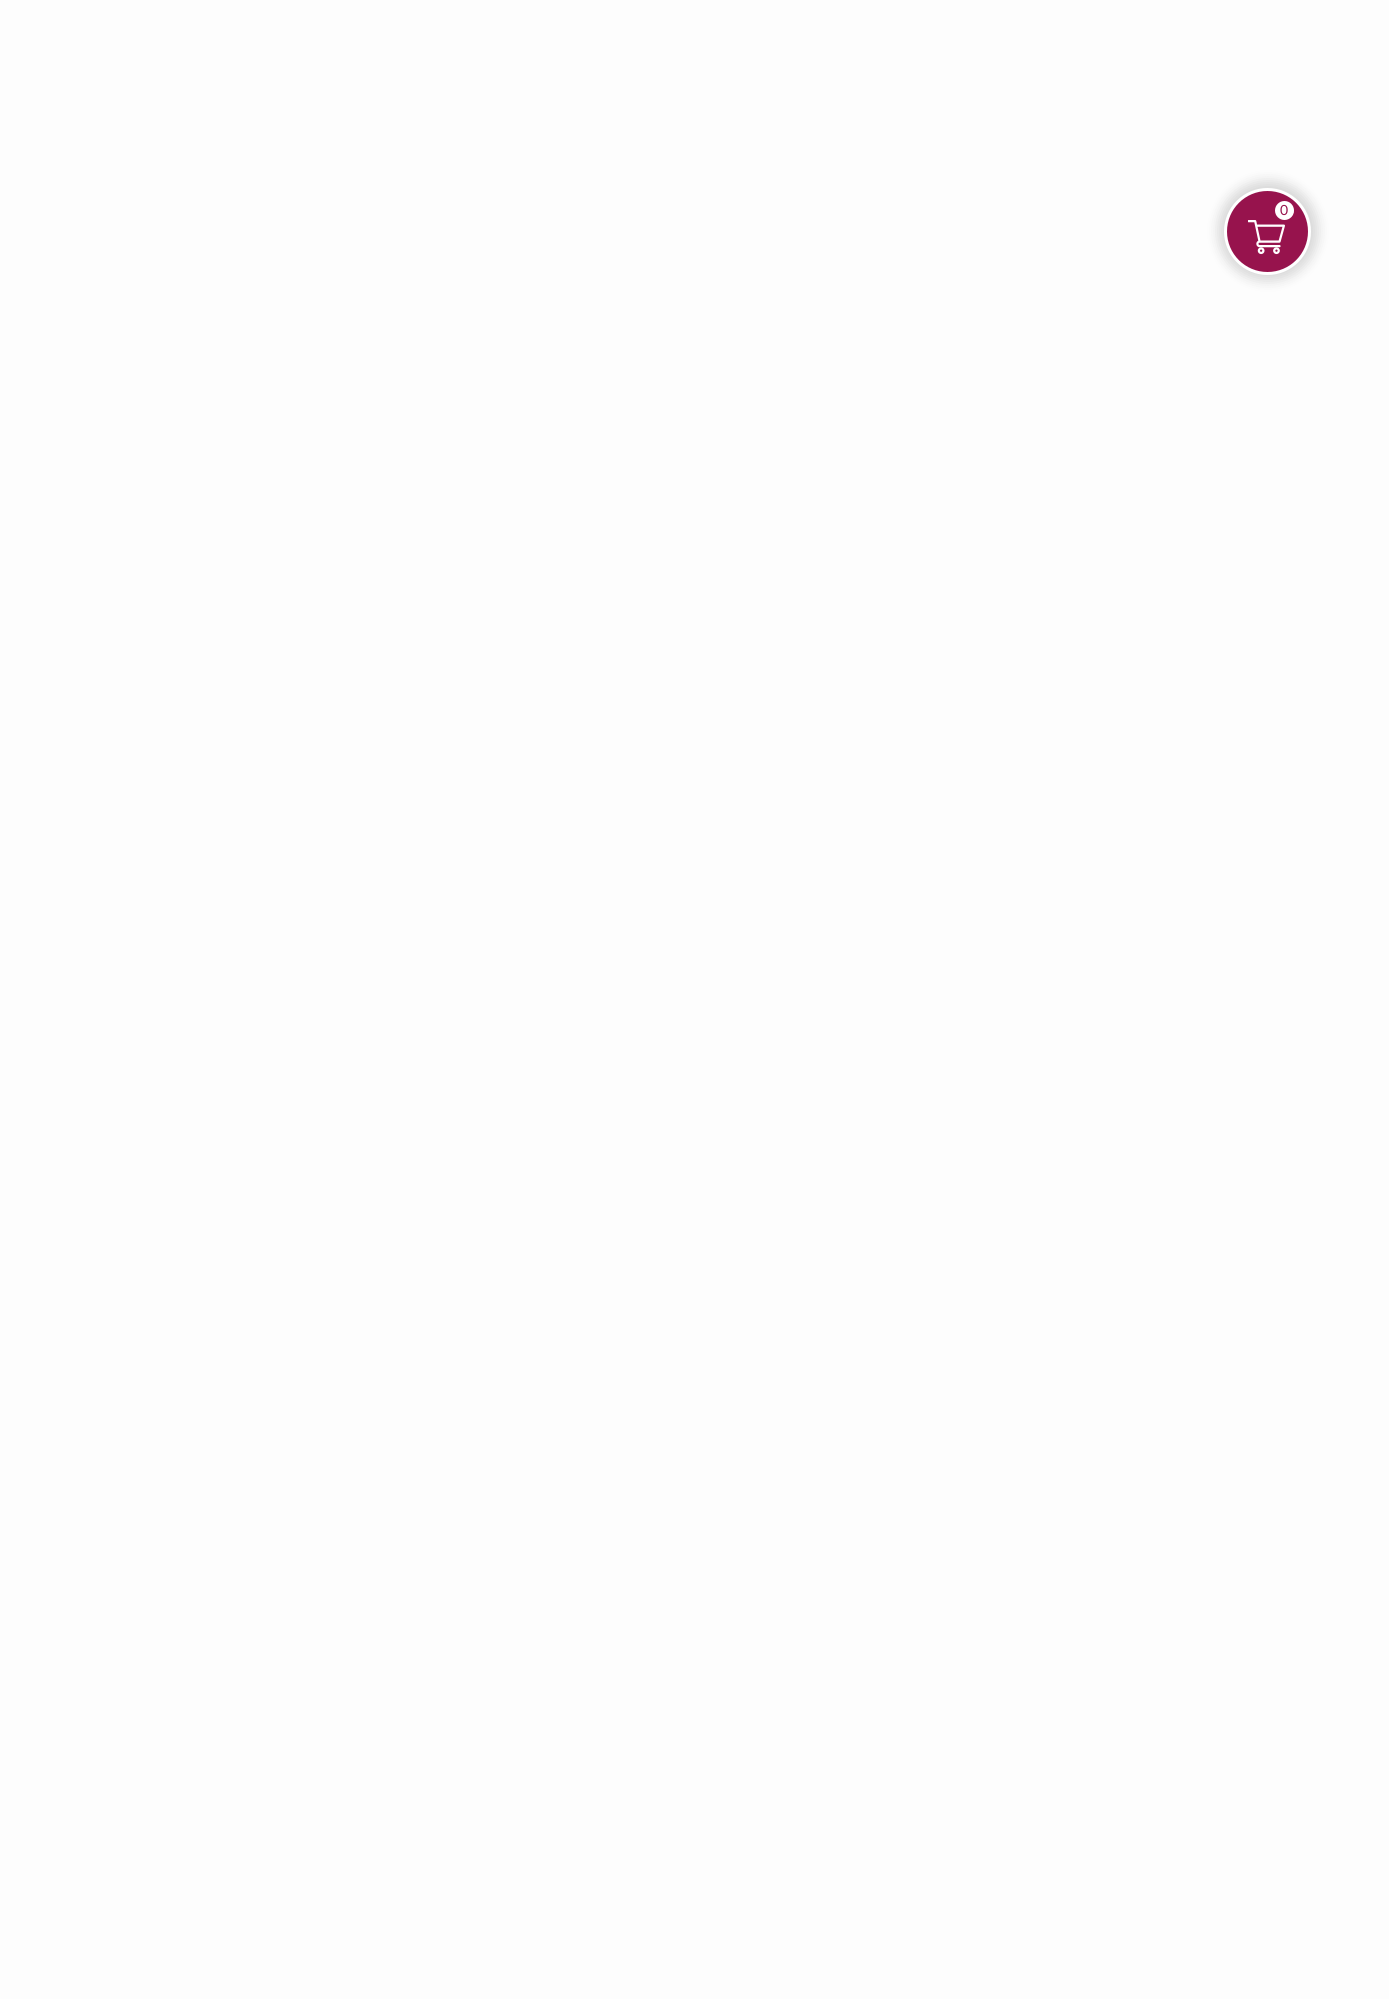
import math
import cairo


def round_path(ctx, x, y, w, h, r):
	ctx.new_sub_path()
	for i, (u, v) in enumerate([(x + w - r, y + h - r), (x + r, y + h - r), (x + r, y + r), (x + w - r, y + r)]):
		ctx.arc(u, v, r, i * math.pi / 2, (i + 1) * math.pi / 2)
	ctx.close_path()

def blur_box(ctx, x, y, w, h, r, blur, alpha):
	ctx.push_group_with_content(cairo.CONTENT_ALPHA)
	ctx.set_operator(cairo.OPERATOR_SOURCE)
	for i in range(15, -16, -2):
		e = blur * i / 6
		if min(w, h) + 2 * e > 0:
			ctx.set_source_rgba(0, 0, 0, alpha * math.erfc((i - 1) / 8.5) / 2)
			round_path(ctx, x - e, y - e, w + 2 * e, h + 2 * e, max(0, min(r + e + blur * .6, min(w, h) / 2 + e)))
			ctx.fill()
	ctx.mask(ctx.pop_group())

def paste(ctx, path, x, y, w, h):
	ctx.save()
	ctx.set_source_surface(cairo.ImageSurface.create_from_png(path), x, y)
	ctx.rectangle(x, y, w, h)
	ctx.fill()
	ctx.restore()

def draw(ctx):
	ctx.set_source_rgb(0.992, 0.992, 0.992)
	ctx.paint()
	ctx.set_source_rgb(0, 0, 0)
	blur_box(ctx, 1218, 181, 100, 100, 50, 6, 0.15)
	ctx.set_source_rgb(0.592, 0.078, 0.302)
	ctx.arc(1267.5, 231.5, 42, 0, 2 * math.pi)
	ctx.fill_preserve()
	ctx.set_source_rgb(1, 1, 1)
	ctx.set_line_width(3)
	ctx.stroke()
	paste(ctx, 'media/2.png', 1288, 209, 6, 10)
	ctx.arc(1284.5, 210.5, 9.5, 0, 2 * math.pi)
	ctx.fill()
	ctx.select_font_face('Lato')
	ctx.set_font_size(14)
	ctx.set_source_rgb(0.592, 0.078, 0.302)
	ctx.move_to(1280, 215)
	ctx.show_text('0')
	paste(ctx, 'media/1.png', 1248, 220, 37, 35)


surface = cairo.ImageSurface(cairo.FORMAT_RGB24, 1389, 1999)
ctx = cairo.Context(surface)
options = cairo.FontOptions()
options.set_hint_metrics(cairo.HINT_METRICS_OFF)
options.set_hint_style(cairo.HINT_STYLE_NONE)
ctx.set_font_options(options)
ctx.set_miter_limit(4)
draw(ctx)
surface.write_to_png('image.png')
